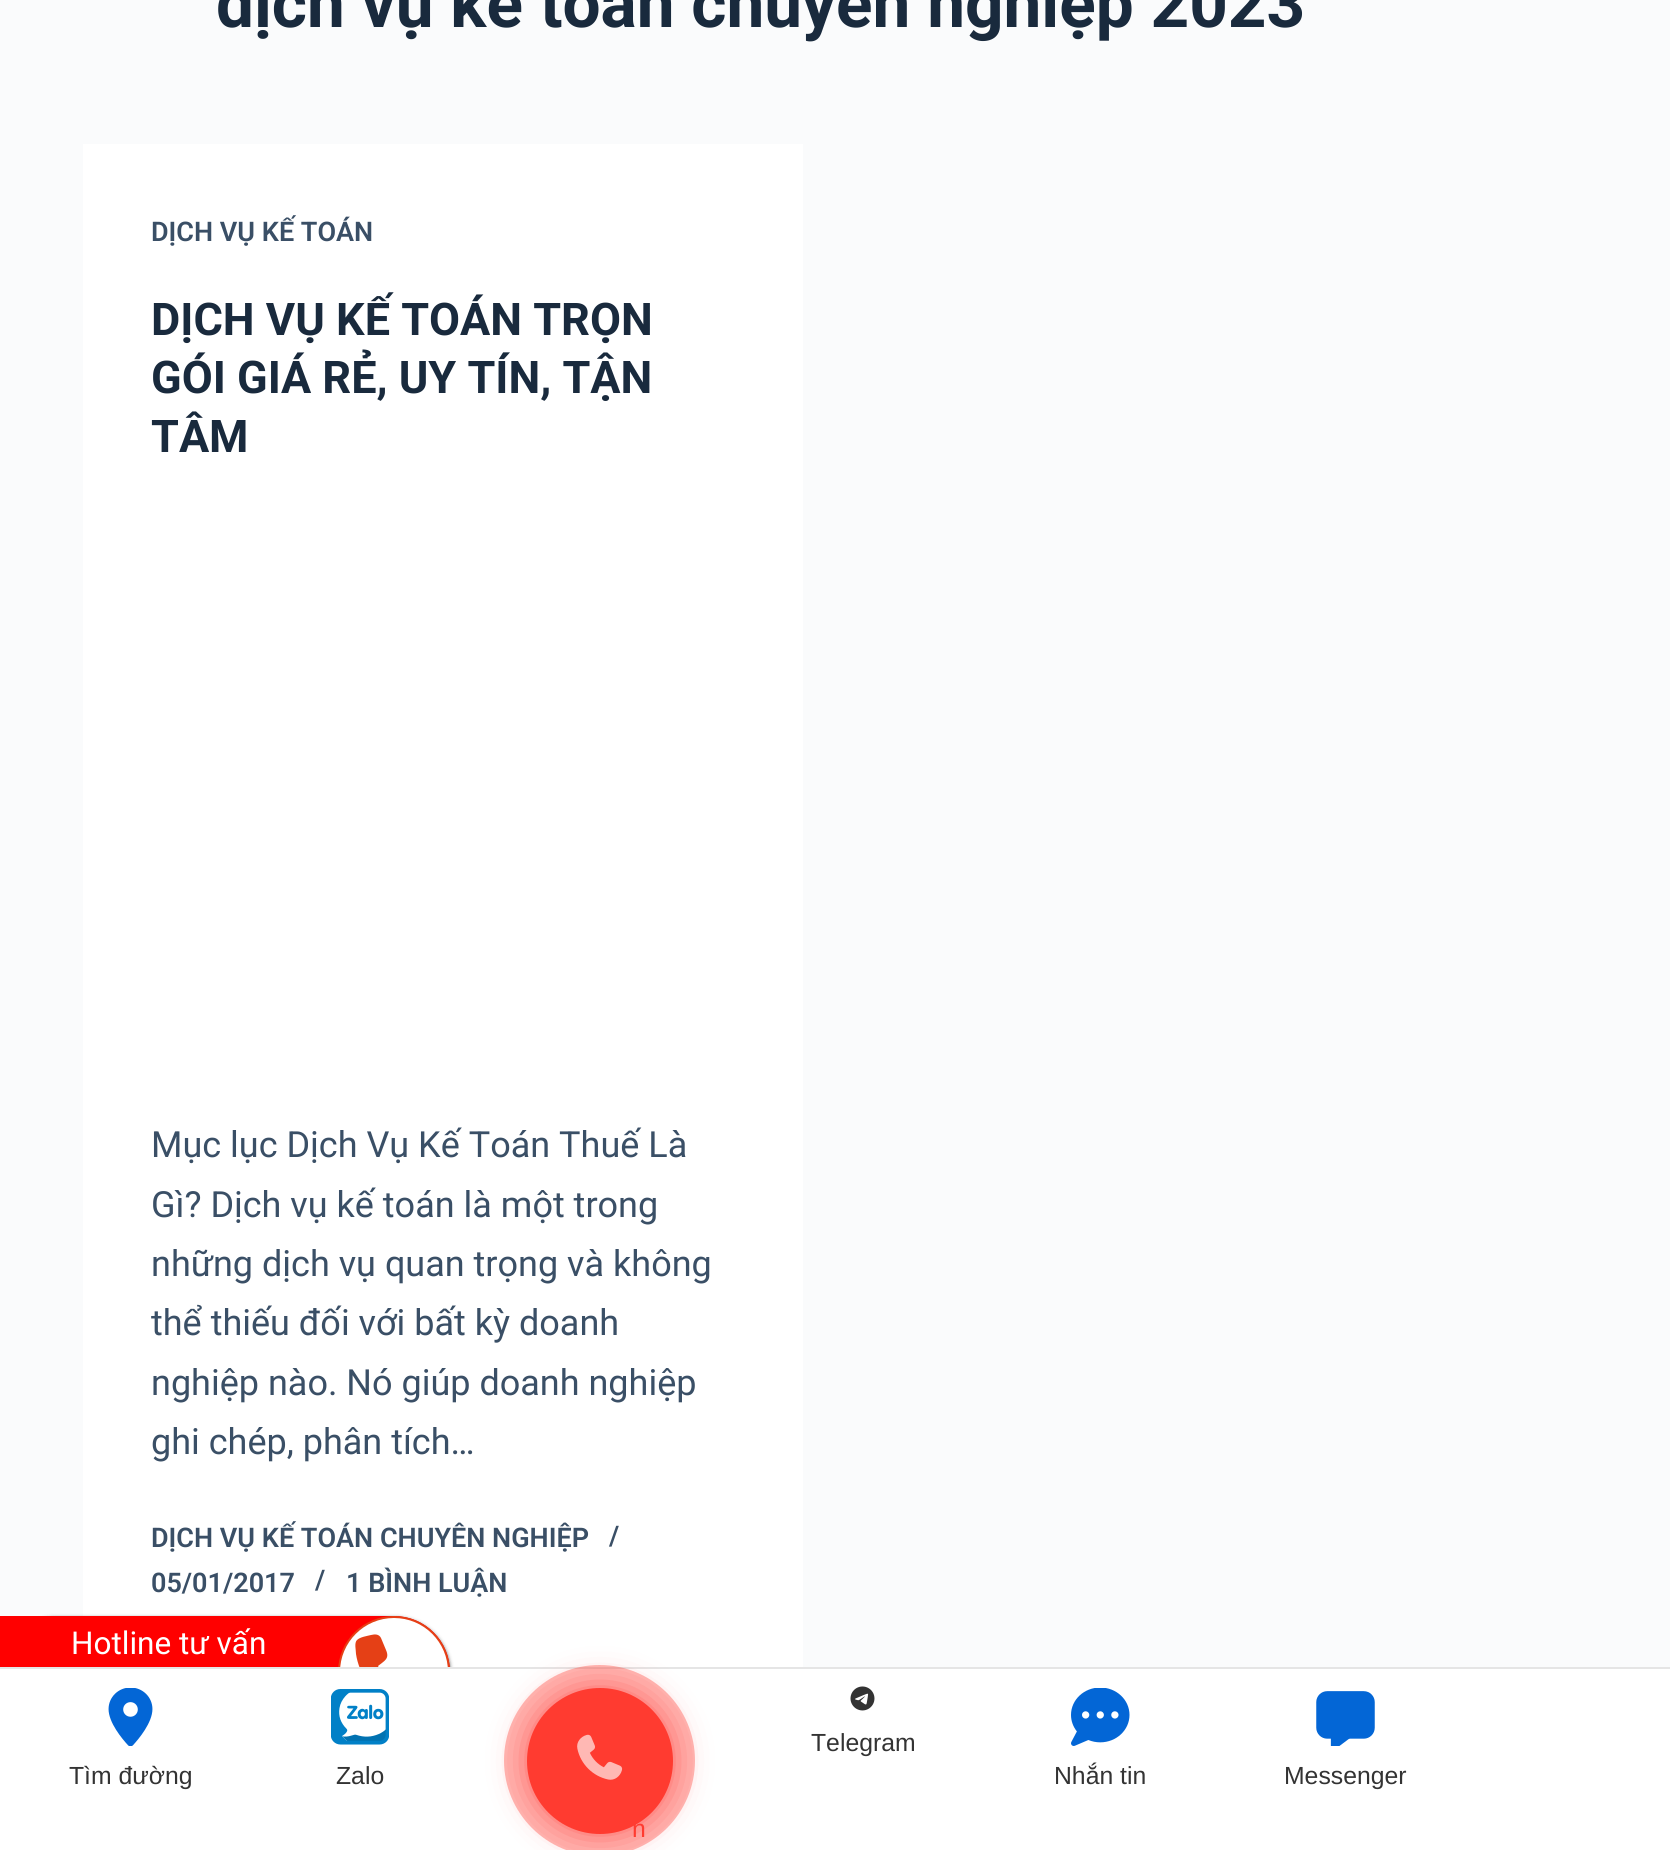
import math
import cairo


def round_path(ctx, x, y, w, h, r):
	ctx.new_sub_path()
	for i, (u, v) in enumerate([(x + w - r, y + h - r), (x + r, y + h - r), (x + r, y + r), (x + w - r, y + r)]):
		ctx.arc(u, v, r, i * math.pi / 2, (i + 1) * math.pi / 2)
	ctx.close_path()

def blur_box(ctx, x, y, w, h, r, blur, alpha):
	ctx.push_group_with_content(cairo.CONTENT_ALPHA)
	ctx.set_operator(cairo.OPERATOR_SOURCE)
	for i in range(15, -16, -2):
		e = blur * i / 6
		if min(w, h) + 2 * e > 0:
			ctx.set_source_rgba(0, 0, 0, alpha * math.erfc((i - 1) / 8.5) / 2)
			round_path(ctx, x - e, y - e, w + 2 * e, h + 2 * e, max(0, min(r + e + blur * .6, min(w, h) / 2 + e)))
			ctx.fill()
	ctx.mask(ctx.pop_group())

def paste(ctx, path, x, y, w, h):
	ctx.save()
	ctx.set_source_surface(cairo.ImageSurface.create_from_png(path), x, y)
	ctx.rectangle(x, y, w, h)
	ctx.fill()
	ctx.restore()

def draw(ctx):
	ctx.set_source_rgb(0.98, 0.984, 0.988)
	ctx.paint()
	ctx.select_font_face('Roboto', cairo.FONT_SLANT_NORMAL, cairo.FONT_WEIGHT_BOLD)
	ctx.set_font_size(67.5)
	ctx.set_source_rgb(0.098, 0.165, 0.239)
	ctx.move_to(216, 27)
	ctx.show_text('dịch vụ kế toán chuyên nghiệp 2023')
	ctx.set_source_rgb(1, 1, 1)
	ctx.rectangle(83, 144, 720, 1523)
	ctx.fill()
	ctx.select_font_face('Roboto SemiBold')
	ctx.set_font_size(27)
	ctx.set_source_rgb(0.227, 0.31, 0.4)
	ctx.move_to(151, 241)
	ctx.show_text('DỊCH VỤ KẾ TOÁN')
	ctx.select_font_face('Roboto', cairo.FONT_SLANT_NORMAL, cairo.FONT_WEIGHT_BOLD)
	ctx.set_font_size(45)
	ctx.set_source_rgb(0.098, 0.165, 0.239)
	for x, y, s in [
		(151, 335, 'DỊCH VỤ KẾ TOÁN TRỌN'),
		(151, 393, 'GÓI GIÁ RẺ, UY TÍN, TẬN'),
		(151, 452, 'TÂM'),
	]:
		ctx.move_to(x, y)
		ctx.show_text(s)
	ctx.select_font_face('Roboto')
	ctx.set_font_size(36)
	ctx.set_source_rgb(0.227, 0.31, 0.4)
	for x, y, s in [
		(151, 1157, 'Mục lục Dịch Vụ Kế Toán Thuế Là'),
		(151, 1217, 'Gì? Dịch vụ kế toán là một trong'),
		(151, 1276, 'những dịch vụ quan trọng và không'),
		(151, 1335, 'thể thiếu đối với bất kỳ doanh'),
		(151, 1395, 'nghiệp nào. Nó giúp doanh nghiệp'),
		(151, 1454, 'ghi chép, phân tích…'),
	]:
		ctx.move_to(x, y)
		ctx.show_text(s)
	ctx.select_font_face('Roboto SemiBold')
	ctx.set_font_size(27)
	for x, y, s in [
		(151, 1547, 'DỊCH VỤ KẾ TOÁN CHUYÊN NGHIỆP'),
		(609, 1545, '/'),
		(151, 1592, '05/01/2017'),
		(315, 1589, '/'),
		(346, 1592, '1 BÌNH LUẬN'),
	]:
		ctx.move_to(x, y)
		ctx.show_text(s)
	ctx.set_source_rgb(0, 0, 0)
	blur_box(ctx, 0, 1618, 450, 112, 56, 2, 0.8)
	ctx.set_source_rgb(1, 0, 0)
	ctx.new_path()
	ctx.move_to(0, 1616)
	ctx.line_to(394, 1616)
	ctx.curve_to(425, 1616, 450, 1641, 450, 1672)
	ctx.curve_to(450, 1703, 425, 1728, 394, 1728)
	ctx.line_to(0, 1728)
	ctx.close_path()
	ctx.fill()
	ctx.select_font_face('Roboto')
	ctx.set_font_size(31.5)
	ctx.set_source_rgb(1, 1, 1)
	ctx.move_to(71, 1654)
	ctx.show_text('Hotline tư vấn')
	ctx.new_path()
	ctx.arc(394, 1672, 55, 0, 2 * math.pi)
	ctx.fill_preserve()
	ctx.set_source_rgb(0.898, 0.251, 0.086)
	ctx.stroke()
	ctx.new_path()
	ctx.move_to(381, 1638)
	ctx.curve_to(379, 1634, 375, 1634, 371, 1635)
	ctx.curve_to(367, 1636, 360, 1637, 357, 1640)
	ctx.curve_to(354, 1643, 356, 1650, 356, 1654)
	ctx.curve_to(359, 1674, 372, 1693, 390, 1704)
	ctx.curve_to(397, 1708, 406, 1711, 415, 1712)
	ctx.curve_to(428, 1714, 429, 1714, 432, 1702)
	ctx.curve_to(436, 1689, 435, 1690, 423, 1685)
	ctx.curve_to(410, 1679, 411, 1680, 402, 1691)
	ctx.curve_to(391, 1686, 383, 1677, 378, 1666)
	ctx.curve_to(384, 1661, 390, 1659, 386, 1650)
	ctx.close_path()
	ctx.fill()
	ctx.set_source_rgb(1, 1, 1)
	ctx.rectangle(0, 1669, 1670, 181)
	ctx.fill()
	ctx.set_source_rgb(0.898, 0.898, 0.898)
	ctx.rectangle(0, 1667, 1670, 2)
	ctx.fill()
	paste(ctx, 'media/1.png', 850, 1686, 25, 25)
	ctx.select_font_face('Liberation Sans')
	ctx.set_font_size(24.75)
	ctx.set_source_rgb(0.2, 0.2, 0.2)
	ctx.move_to(811, 1751)
	ctx.show_text('Telegram')
	paste(ctx, 'media/2.png', 108, 1688, 45, 58)
	ctx.move_to(69, 1784)
	ctx.show_text('Tìm đường')
	paste(ctx, 'media/3.png', 331, 1689, 58, 56)
	ctx.move_to(336, 1784)
	ctx.show_text('Zalo')
	paste(ctx, 'media/4.png', 1071, 1688, 59, 58)
	ctx.move_to(1054, 1784)
	ctx.show_text('Nhắn tin')
	paste(ctx, 'media/5.png', 1316, 1691, 59, 55)
	ctx.move_to(1284, 1784)
	ctx.show_text('Messenger')
	ctx.set_source_rgb(1, 0, 0)
	blur_box(ctx, 527, 1688, 146, 146, 73, 17, 0.55)
	ctx.set_source_rgb(1, 0.231, 0.188)
	ctx.arc(600, 1761, 73, 0, 2 * math.pi)
	ctx.fill()
	paste(ctx, 'media/6.png', 577, 1734, 46, 46)
	ctx.move_to(632, 1837)
	ctx.show_text('n')
	ctx.set_source_rgba(1, 0.231, 0.188, 0.36)
	ctx.new_path()
	ctx.arc(599.5, 1760.5, 95.5, 0, 2 * math.pi)
	ctx.fill()


surface = cairo.ImageSurface(cairo.FORMAT_RGB24, 1670, 1850)
ctx = cairo.Context(surface)
options = cairo.FontOptions()
options.set_hint_metrics(cairo.HINT_METRICS_OFF)
options.set_hint_style(cairo.HINT_STYLE_NONE)
ctx.set_font_options(options)
ctx.set_miter_limit(4)
draw(ctx)
surface.write_to_png('image.png')
